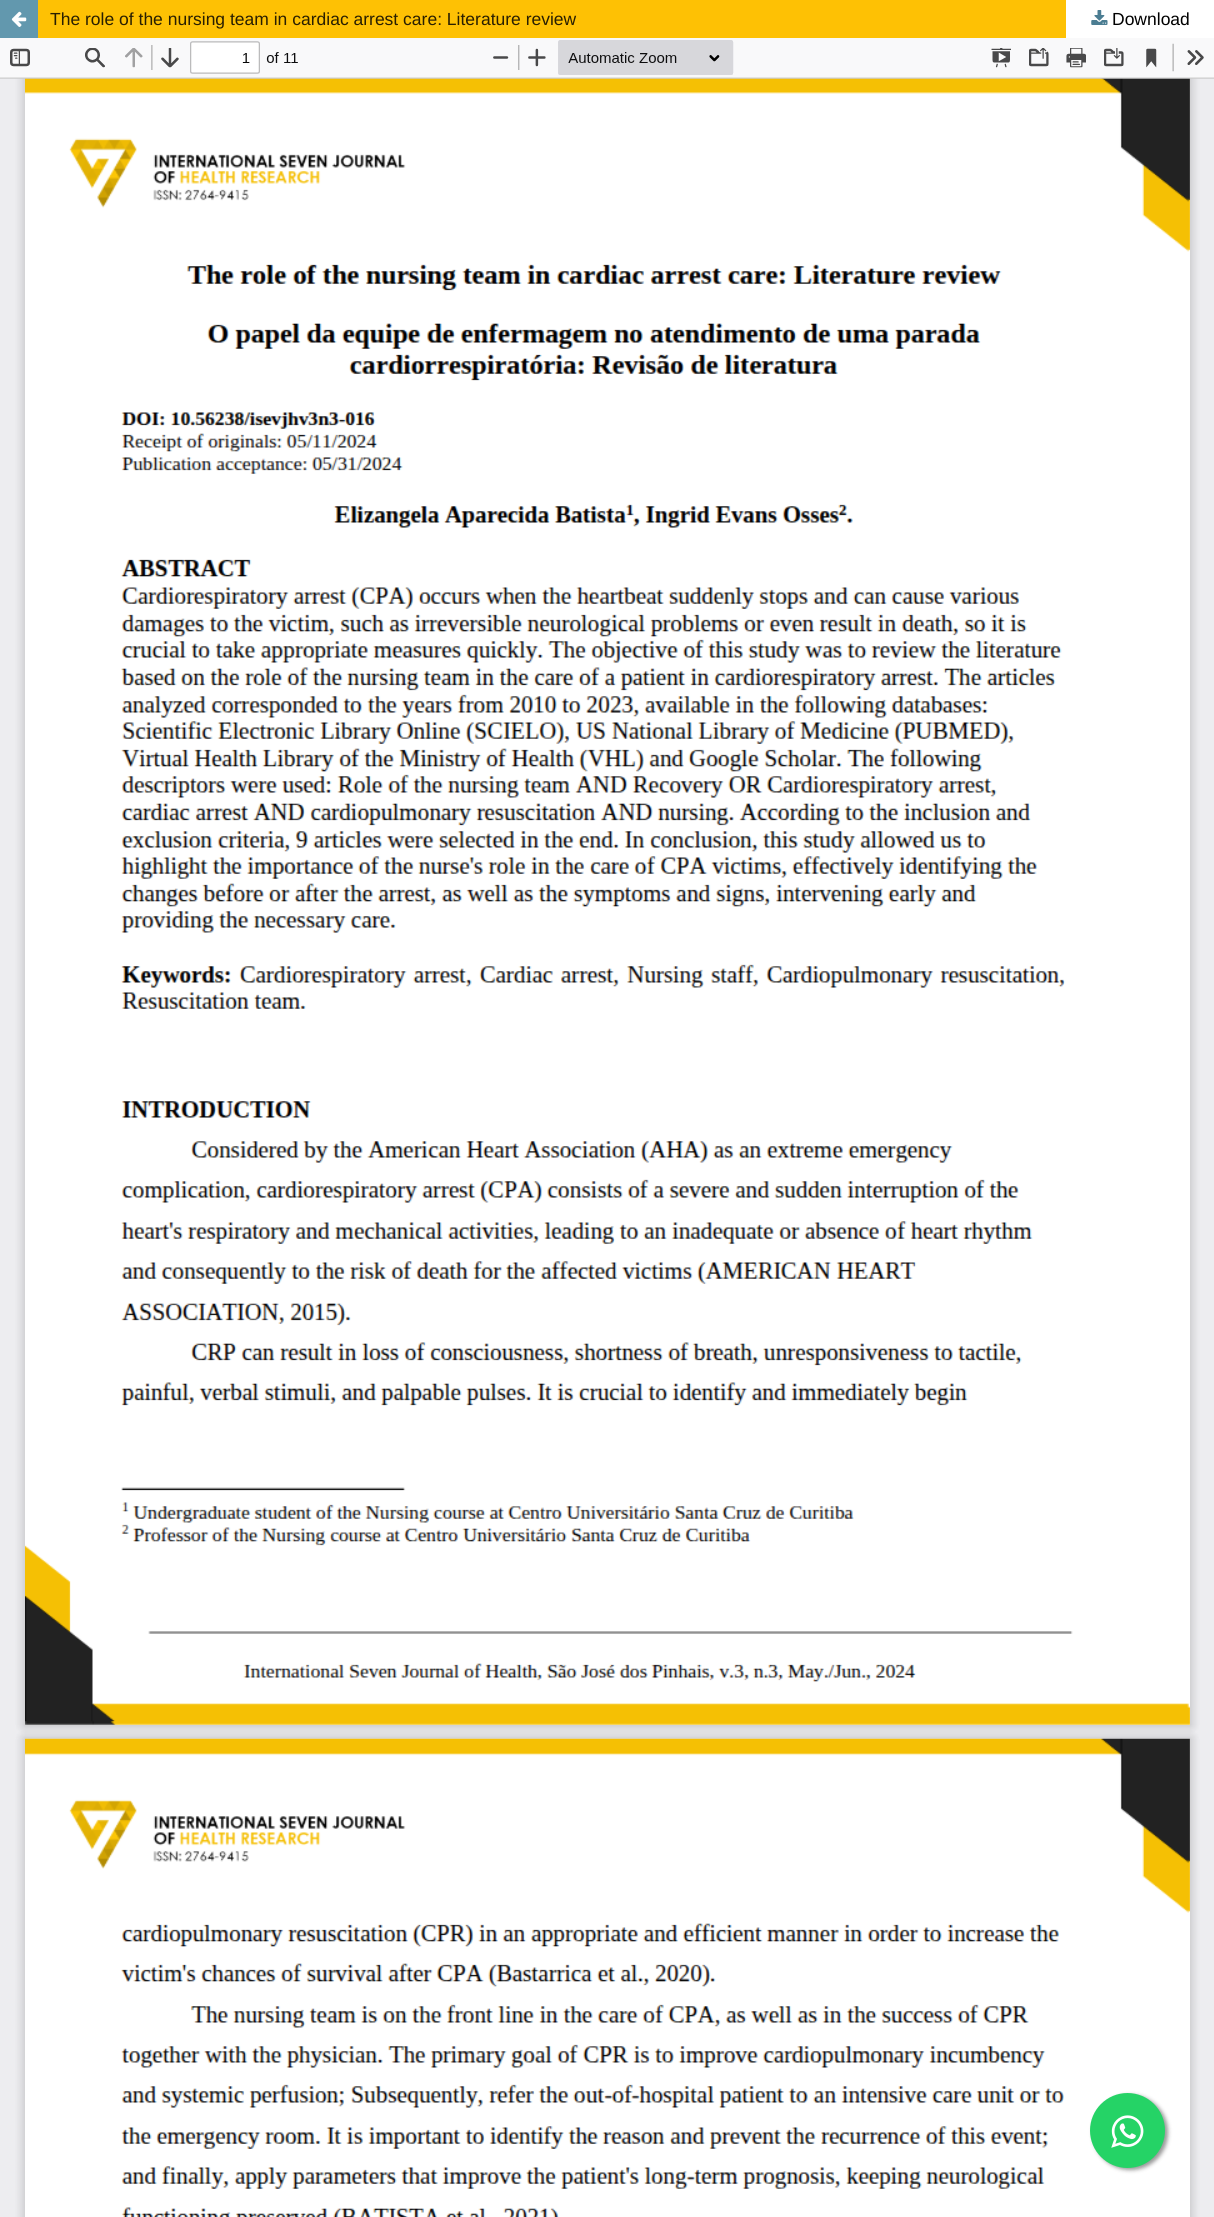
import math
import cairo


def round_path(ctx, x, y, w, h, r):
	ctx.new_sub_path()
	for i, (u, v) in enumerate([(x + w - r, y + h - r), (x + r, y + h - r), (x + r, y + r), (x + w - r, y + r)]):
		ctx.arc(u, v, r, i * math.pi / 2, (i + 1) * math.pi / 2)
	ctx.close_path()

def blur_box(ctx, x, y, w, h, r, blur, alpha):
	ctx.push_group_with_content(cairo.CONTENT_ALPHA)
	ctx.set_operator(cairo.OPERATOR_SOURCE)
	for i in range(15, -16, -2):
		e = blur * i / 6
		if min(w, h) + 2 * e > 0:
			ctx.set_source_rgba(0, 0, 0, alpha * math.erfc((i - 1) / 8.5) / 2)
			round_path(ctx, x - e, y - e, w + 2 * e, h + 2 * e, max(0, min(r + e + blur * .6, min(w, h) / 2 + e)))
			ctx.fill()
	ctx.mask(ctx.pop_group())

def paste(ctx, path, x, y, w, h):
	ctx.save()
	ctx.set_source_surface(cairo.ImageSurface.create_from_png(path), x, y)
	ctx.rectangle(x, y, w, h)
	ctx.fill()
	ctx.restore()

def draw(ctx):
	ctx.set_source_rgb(1, 1, 1)
	ctx.paint()
	ctx.set_source_rgb(0.996, 0.757, 0.016)
	ctx.rectangle(38, 0, 1028, 38)
	ctx.fill()
	ctx.set_source_rgb(0.384, 0.596, 0.682)
	ctx.rectangle(0, 0, 38, 38)
	ctx.fill()
	paste(ctx, 'media/1.png', 11, 11, 16, 16)
	ctx.select_font_face('Liberation Sans')
	ctx.set_font_size(17.5)
	ctx.set_source_rgb(0.161, 0.122, 0.004)
	ctx.move_to(50, 25)
	ctx.show_text('The role of the nursing team in cardiac arrest care: Literature review')
	paste(ctx, 'media/2.png', 1091, 10, 17, 15)
	ctx.set_source_rgb(0, 0, 0)
	ctx.move_to(1112, 25)
	ctx.show_text('Download')
	paste(ctx, 'media/3.png', 0, 38, 1214, 2179)
	ctx.set_source_rgb(0.6, 0.6, 0.6)
	blur_box(ctx, 1093, 2095, 75, 75, 37.5, 2, 1)
	ctx.set_source_rgb(0.145, 0.827, 0.4)
	ctx.arc(1127.5, 2130.5, 37.5, 0, 2 * math.pi)
	ctx.fill()
	paste(ctx, 'media/4.png', 1111, 2115, 33, 33)


surface = cairo.ImageSurface(cairo.FORMAT_RGB24, 1214, 2217)
ctx = cairo.Context(surface)
options = cairo.FontOptions()
options.set_hint_metrics(cairo.HINT_METRICS_OFF)
options.set_hint_style(cairo.HINT_STYLE_NONE)
ctx.set_font_options(options)
ctx.set_miter_limit(4)
draw(ctx)
surface.write_to_png('image.png')
